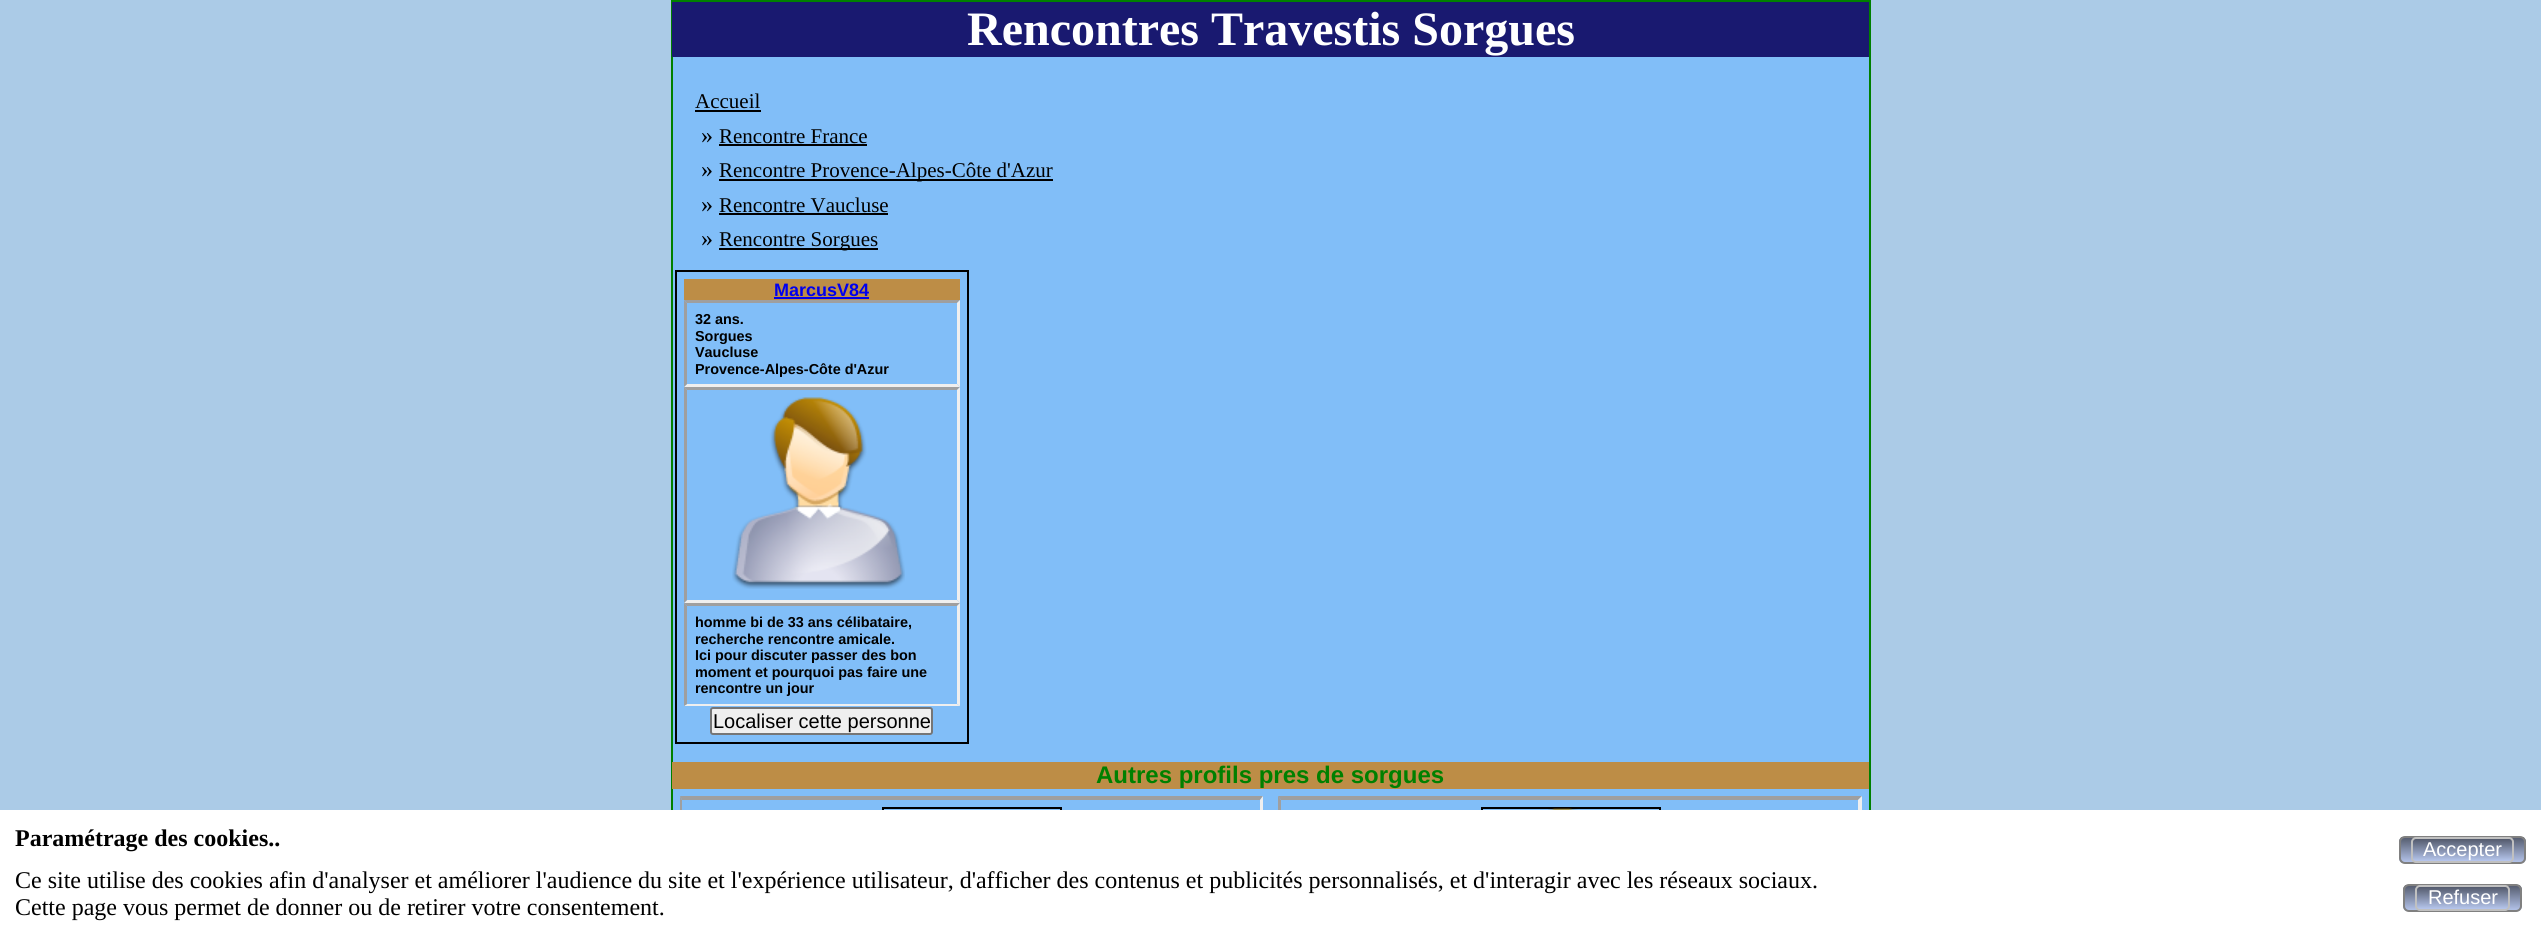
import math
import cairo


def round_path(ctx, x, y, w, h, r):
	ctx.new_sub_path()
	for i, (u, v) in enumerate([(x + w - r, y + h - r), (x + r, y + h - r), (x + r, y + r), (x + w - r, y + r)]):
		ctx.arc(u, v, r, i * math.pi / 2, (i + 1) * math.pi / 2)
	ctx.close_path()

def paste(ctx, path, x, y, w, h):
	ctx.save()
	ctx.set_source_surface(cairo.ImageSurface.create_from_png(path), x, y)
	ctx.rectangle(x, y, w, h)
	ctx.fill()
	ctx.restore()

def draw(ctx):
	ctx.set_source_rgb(0.671, 0.796, 0.906)
	ctx.paint()
	ctx.set_source_rgb(0.506, 0.745, 0.969)
	ctx.rectangle(673, 57, 1196, 753)
	ctx.fill()
	ctx.rectangle(672, 1, 1198, 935)
	ctx.set_source_rgb(0, 0.502, 0)
	ctx.stroke()
	ctx.set_source_rgb(0.098, 0.098, 0.439)
	ctx.rectangle(672, 2, 1197, 55)
	ctx.fill()
	ctx.select_font_face('Liberation Serif', cairo.FONT_SLANT_NORMAL, cairo.FONT_WEIGHT_BOLD)
	ctx.set_font_size(48)
	ctx.set_source_rgb(1, 1, 1)
	ctx.move_to(967, 45)
	ctx.show_text('Rencontres Travestis Sorgues')
	ctx.select_font_face('Liberation Serif')
	ctx.set_font_size(21)
	ctx.set_source_rgb(0, 0, 0)
	ctx.move_to(695, 108)
	ctx.show_text('Accueil')
	ctx.rectangle(695, 110, 66, 2)
	ctx.fill()
	ctx.set_font_size(24)
	ctx.move_to(701, 143)
	ctx.show_text('»')
	ctx.set_font_size(21)
	ctx.move_to(719, 143)
	ctx.show_text('Rencontre France')
	ctx.rectangle(719, 144, 148, 2)
	ctx.fill()
	ctx.set_font_size(24)
	ctx.move_to(701, 177)
	ctx.show_text('»')
	ctx.rectangle(719, 179, 334, 2)
	ctx.fill()
	ctx.set_font_size(21)
	ctx.move_to(719, 177)
	ctx.show_text('Rencontre Provence-Alpes-Côte d\'Azur')
	ctx.set_font_size(24)
	ctx.move_to(701, 212)
	ctx.show_text('»')
	ctx.set_font_size(21)
	ctx.move_to(719, 212)
	ctx.show_text('Rencontre Vaucluse')
	ctx.rectangle(719, 213, 169, 2)
	ctx.fill()
	ctx.set_font_size(24)
	ctx.move_to(701, 246)
	ctx.show_text('»')
	ctx.rectangle(719, 248, 159, 2)
	ctx.fill()
	ctx.set_font_size(21)
	ctx.move_to(719, 246)
	ctx.show_text('Rencontre Sorgues')
	ctx.rectangle(676, 271, 292, 472)
	ctx.stroke()
	ctx.set_source_rgb(0.741, 0.553, 0.275)
	ctx.rectangle(684, 279, 276, 21)
	ctx.fill()
	ctx.select_font_face('Liberation Sans', cairo.FONT_SLANT_NORMAL, cairo.FONT_WEIGHT_BOLD)
	ctx.set_font_size(18)
	ctx.set_source_rgb(0, 0, 0.933)
	ctx.move_to(774, 296)
	ctx.show_text('MarcusV84')
	ctx.rectangle(774, 297, 95, 2)
	ctx.fill()
	ctx.set_source_rgb(0.624, 0.624, 0.624)
	ctx.new_path()
	ctx.move_to(684, 300)
	ctx.line_to(960, 300)
	ctx.line_to(957, 303)
	ctx.line_to(687, 303)
	ctx.close_path()
	ctx.fill()
	ctx.set_source_rgb(0.937, 0.937, 0.937)
	ctx.new_path()
	ctx.move_to(960, 300)
	ctx.line_to(960, 387)
	ctx.line_to(957, 384)
	ctx.line_to(957, 303)
	ctx.close_path()
	ctx.fill()
	ctx.new_path()
	ctx.move_to(960, 387)
	ctx.line_to(684, 387)
	ctx.line_to(687, 384)
	ctx.line_to(957, 384)
	ctx.close_path()
	ctx.fill()
	ctx.set_source_rgb(0.624, 0.624, 0.624)
	ctx.new_path()
	ctx.move_to(684, 387)
	ctx.line_to(684, 300)
	ctx.line_to(687, 303)
	ctx.line_to(687, 384)
	ctx.close_path()
	ctx.fill()
	ctx.set_font_size(14.4)
	ctx.set_source_rgb(0, 0, 0)
	for x, y, s in [
		(695, 324, '32 ans.'),
		(695, 341, 'Sorgues'),
		(695, 357, 'Vaucluse'),
		(695, 374, 'Provence-Alpes-Côte d\'Azur'),
	]:
		ctx.move_to(x, y)
		ctx.show_text(s)
	ctx.set_source_rgb(0.624, 0.624, 0.624)
	ctx.new_path()
	ctx.move_to(684, 387)
	ctx.line_to(960, 387)
	ctx.line_to(957, 390)
	ctx.line_to(687, 390)
	ctx.close_path()
	ctx.fill()
	ctx.set_source_rgb(0.937, 0.937, 0.937)
	ctx.new_path()
	ctx.move_to(960, 387)
	ctx.line_to(960, 603)
	ctx.line_to(957, 600)
	ctx.line_to(957, 390)
	ctx.close_path()
	ctx.fill()
	ctx.new_path()
	ctx.move_to(960, 603)
	ctx.line_to(684, 603)
	ctx.line_to(687, 600)
	ctx.line_to(957, 600)
	ctx.close_path()
	ctx.fill()
	ctx.set_source_rgb(0.624, 0.624, 0.624)
	ctx.new_path()
	ctx.move_to(684, 603)
	ctx.line_to(684, 387)
	ctx.line_to(687, 390)
	ctx.line_to(687, 600)
	ctx.close_path()
	ctx.fill()
	paste(ctx, 'media/1.png', 732, 397, 173, 192)
	ctx.new_path()
	ctx.move_to(684, 603)
	ctx.line_to(960, 603)
	ctx.line_to(957, 606)
	ctx.line_to(687, 606)
	ctx.close_path()
	ctx.fill()
	ctx.set_source_rgb(0.937, 0.937, 0.937)
	ctx.new_path()
	ctx.move_to(960, 603)
	ctx.line_to(960, 706)
	ctx.line_to(957, 704)
	ctx.line_to(957, 606)
	ctx.close_path()
	ctx.fill()
	ctx.new_path()
	ctx.move_to(960, 706)
	ctx.line_to(684, 706)
	ctx.line_to(687, 704)
	ctx.line_to(957, 704)
	ctx.close_path()
	ctx.fill()
	ctx.set_source_rgb(0.624, 0.624, 0.624)
	ctx.new_path()
	ctx.move_to(684, 706)
	ctx.line_to(684, 603)
	ctx.line_to(687, 606)
	ctx.line_to(687, 704)
	ctx.close_path()
	ctx.fill()
	ctx.set_source_rgb(0, 0, 0)
	for x, y, s in [
		(695, 627, 'homme bi de 33 ans célibataire,'),
		(695, 644, 'recherche rencontre amicale.'),
		(695, 660, 'Ici pour discuter passer des bon'),
		(695, 677, 'moment et pourquoi pas faire une'),
		(695, 693, 'rencontre un jour'),
	]:
		ctx.move_to(x, y)
		ctx.show_text(s)
	ctx.set_source_rgb(0.937, 0.937, 0.937)
	round_path(ctx, 711, 708, 221, 26, 2)
	ctx.fill_preserve()
	ctx.set_source_rgb(0.463, 0.463, 0.463)
	ctx.stroke()
	ctx.select_font_face('Liberation Sans')
	ctx.set_font_size(20)
	ctx.set_source_rgb(0, 0, 0)
	ctx.move_to(713, 728)
	ctx.show_text('Localiser cette personne')
	ctx.set_source_rgb(0.741, 0.553, 0.275)
	ctx.rectangle(672, 762, 1197, 27)
	ctx.fill()
	ctx.select_font_face('Liberation Sans', cairo.FONT_SLANT_NORMAL, cairo.FONT_WEIGHT_BOLD)
	ctx.set_font_size(24)
	ctx.set_source_rgb(0, 0.502, 0)
	ctx.move_to(1096, 783)
	ctx.show_text('Autres profils pres de sorgues')
	ctx.set_source_rgb(0.624, 0.624, 0.624)
	ctx.new_path()
	ctx.move_to(680, 796)
	ctx.line_to(1263, 796)
	ctx.line_to(1260, 800)
	ctx.line_to(682, 800)
	ctx.close_path()
	ctx.fill()
	ctx.set_source_rgb(0.937, 0.937, 0.937)
	ctx.new_path()
	ctx.move_to(1263, 796)
	ctx.line_to(1263, 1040)
	ctx.line_to(1260, 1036)
	ctx.line_to(1260, 800)
	ctx.close_path()
	ctx.fill()
	ctx.set_source_rgb(0.624, 0.624, 0.624)
	ctx.new_path()
	ctx.move_to(680, 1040)
	ctx.line_to(680, 796)
	ctx.line_to(682, 800)
	ctx.line_to(682, 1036)
	ctx.close_path()
	ctx.fill()
	ctx.rectangle(883, 808, 178, 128)
	ctx.set_source_rgb(0, 0, 0)
	ctx.stroke()
	ctx.set_source_rgb(0.624, 0.624, 0.624)
	ctx.new_path()
	ctx.move_to(1278, 796)
	ctx.line_to(1862, 796)
	ctx.line_to(1858, 800)
	ctx.line_to(1281, 800)
	ctx.close_path()
	ctx.fill()
	ctx.set_source_rgb(0.937, 0.937, 0.937)
	ctx.new_path()
	ctx.move_to(1862, 796)
	ctx.line_to(1862, 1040)
	ctx.line_to(1858, 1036)
	ctx.line_to(1858, 800)
	ctx.close_path()
	ctx.fill()
	ctx.set_source_rgb(0.624, 0.624, 0.624)
	ctx.new_path()
	ctx.move_to(1278, 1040)
	ctx.line_to(1278, 796)
	ctx.line_to(1281, 800)
	ctx.line_to(1281, 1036)
	ctx.close_path()
	ctx.fill()
	ctx.rectangle(1482, 808, 178, 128)
	ctx.set_source_rgb(0, 0, 0)
	ctx.stroke()
	paste(ctx, 'media/2.png', 1548, 808, 30, 2)
	ctx.set_source_rgb(1, 1, 1)
	ctx.rectangle(0, 810, 2541, 125)
	ctx.fill()
	ctx.select_font_face('Liberation Serif', cairo.FONT_SLANT_NORMAL, cairo.FONT_WEIGHT_BOLD)
	ctx.set_source_rgb(0, 0, 0)
	ctx.move_to(15, 846)
	ctx.show_text('Paramétrage des cookies..')
	ctx.select_font_face('Liberation Serif')
	ctx.move_to(15, 888)
	ctx.show_text('Ce site utilise des cookies afin d\'analyser et améliorer l\'audience du site et l\'expérience utilisateur, d\'afficher des contenus et publicités personnalisés, et d\'interagir avec les réseaux sociaux.')
	ctx.move_to(15, 915)
	ctx.show_text('Cette page vous permet de donner ou de retirer votre consentement.')
	ctx.save()
	round_path(ctx, 2399, 836, 127, 28, 6)
	ctx.clip()
	gradient = cairo.LinearGradient(2462, 837, 2462, 863)
	gradient.add_color_stop_rgba(0, 0.325, 0.353, 0.424, 1)
	gradient.add_color_stop_rgba(1, 0.714, 0.776, 0.929, 1)
	ctx.set_source(gradient)
	ctx.rectangle(2399, 837, 127, 26)
	ctx.fill()
	ctx.restore()
	round_path(ctx, 2400, 837, 125, 26, 5)
	ctx.set_source_rgb(0.502, 0.502, 0.502)
	ctx.stroke()
	ctx.save()
	round_path(ctx, 2411, 837, 103, 26, 5)
	ctx.clip()
	gradient = cairo.LinearGradient(2462, 839, 2462, 861)
	gradient.add_color_stop_rgba(0, 0.325, 0.353, 0.424, 1)
	gradient.add_color_stop_rgba(1, 0.714, 0.776, 0.929, 1)
	ctx.set_source(gradient)
	ctx.rectangle(2411, 839, 103, 22)
	ctx.fill()
	ctx.restore()
	round_path(ctx, 2412, 838, 101, 24, 4)
	ctx.set_source_rgb(0.753, 0.753, 0.753)
	ctx.stroke()
	ctx.select_font_face('Liberation Sans')
	ctx.set_font_size(20)
	ctx.set_source_rgb(1, 1, 1)
	ctx.move_to(2423, 856)
	ctx.show_text('Accepter')
	ctx.save()
	round_path(ctx, 2403, 884, 119, 28, 6)
	ctx.clip()
	gradient = cairo.LinearGradient(2462, 885, 2462, 911)
	gradient.add_color_stop_rgba(0, 0.325, 0.353, 0.424, 1)
	gradient.add_color_stop_rgba(1, 0.714, 0.776, 0.929, 1)
	ctx.set_source(gradient)
	ctx.rectangle(2403, 885, 119, 26)
	ctx.fill()
	ctx.restore()
	round_path(ctx, 2404, 885, 117, 26, 5)
	ctx.set_source_rgb(0.502, 0.502, 0.502)
	ctx.stroke()
	ctx.save()
	round_path(ctx, 2415, 885, 95, 26, 5)
	ctx.clip()
	gradient = cairo.LinearGradient(2462, 887, 2462, 909)
	gradient.add_color_stop_rgba(0, 0.325, 0.353, 0.424, 1)
	gradient.add_color_stop_rgba(1, 0.714, 0.776, 0.929, 1)
	ctx.set_source(gradient)
	ctx.rectangle(2415, 887, 95, 22)
	ctx.fill()
	ctx.restore()
	round_path(ctx, 2416, 886, 93, 24, 4)
	ctx.set_source_rgb(0.753, 0.753, 0.753)
	ctx.stroke()
	ctx.set_source_rgb(1, 1, 1)
	ctx.move_to(2428, 904)
	ctx.show_text('Refuser')


surface = cairo.ImageSurface(cairo.FORMAT_RGB24, 2541, 935)
ctx = cairo.Context(surface)
options = cairo.FontOptions()
options.set_hint_metrics(cairo.HINT_METRICS_OFF)
options.set_hint_style(cairo.HINT_STYLE_NONE)
ctx.set_font_options(options)
ctx.set_miter_limit(4)
draw(ctx)
surface.write_to_png('image.png')
